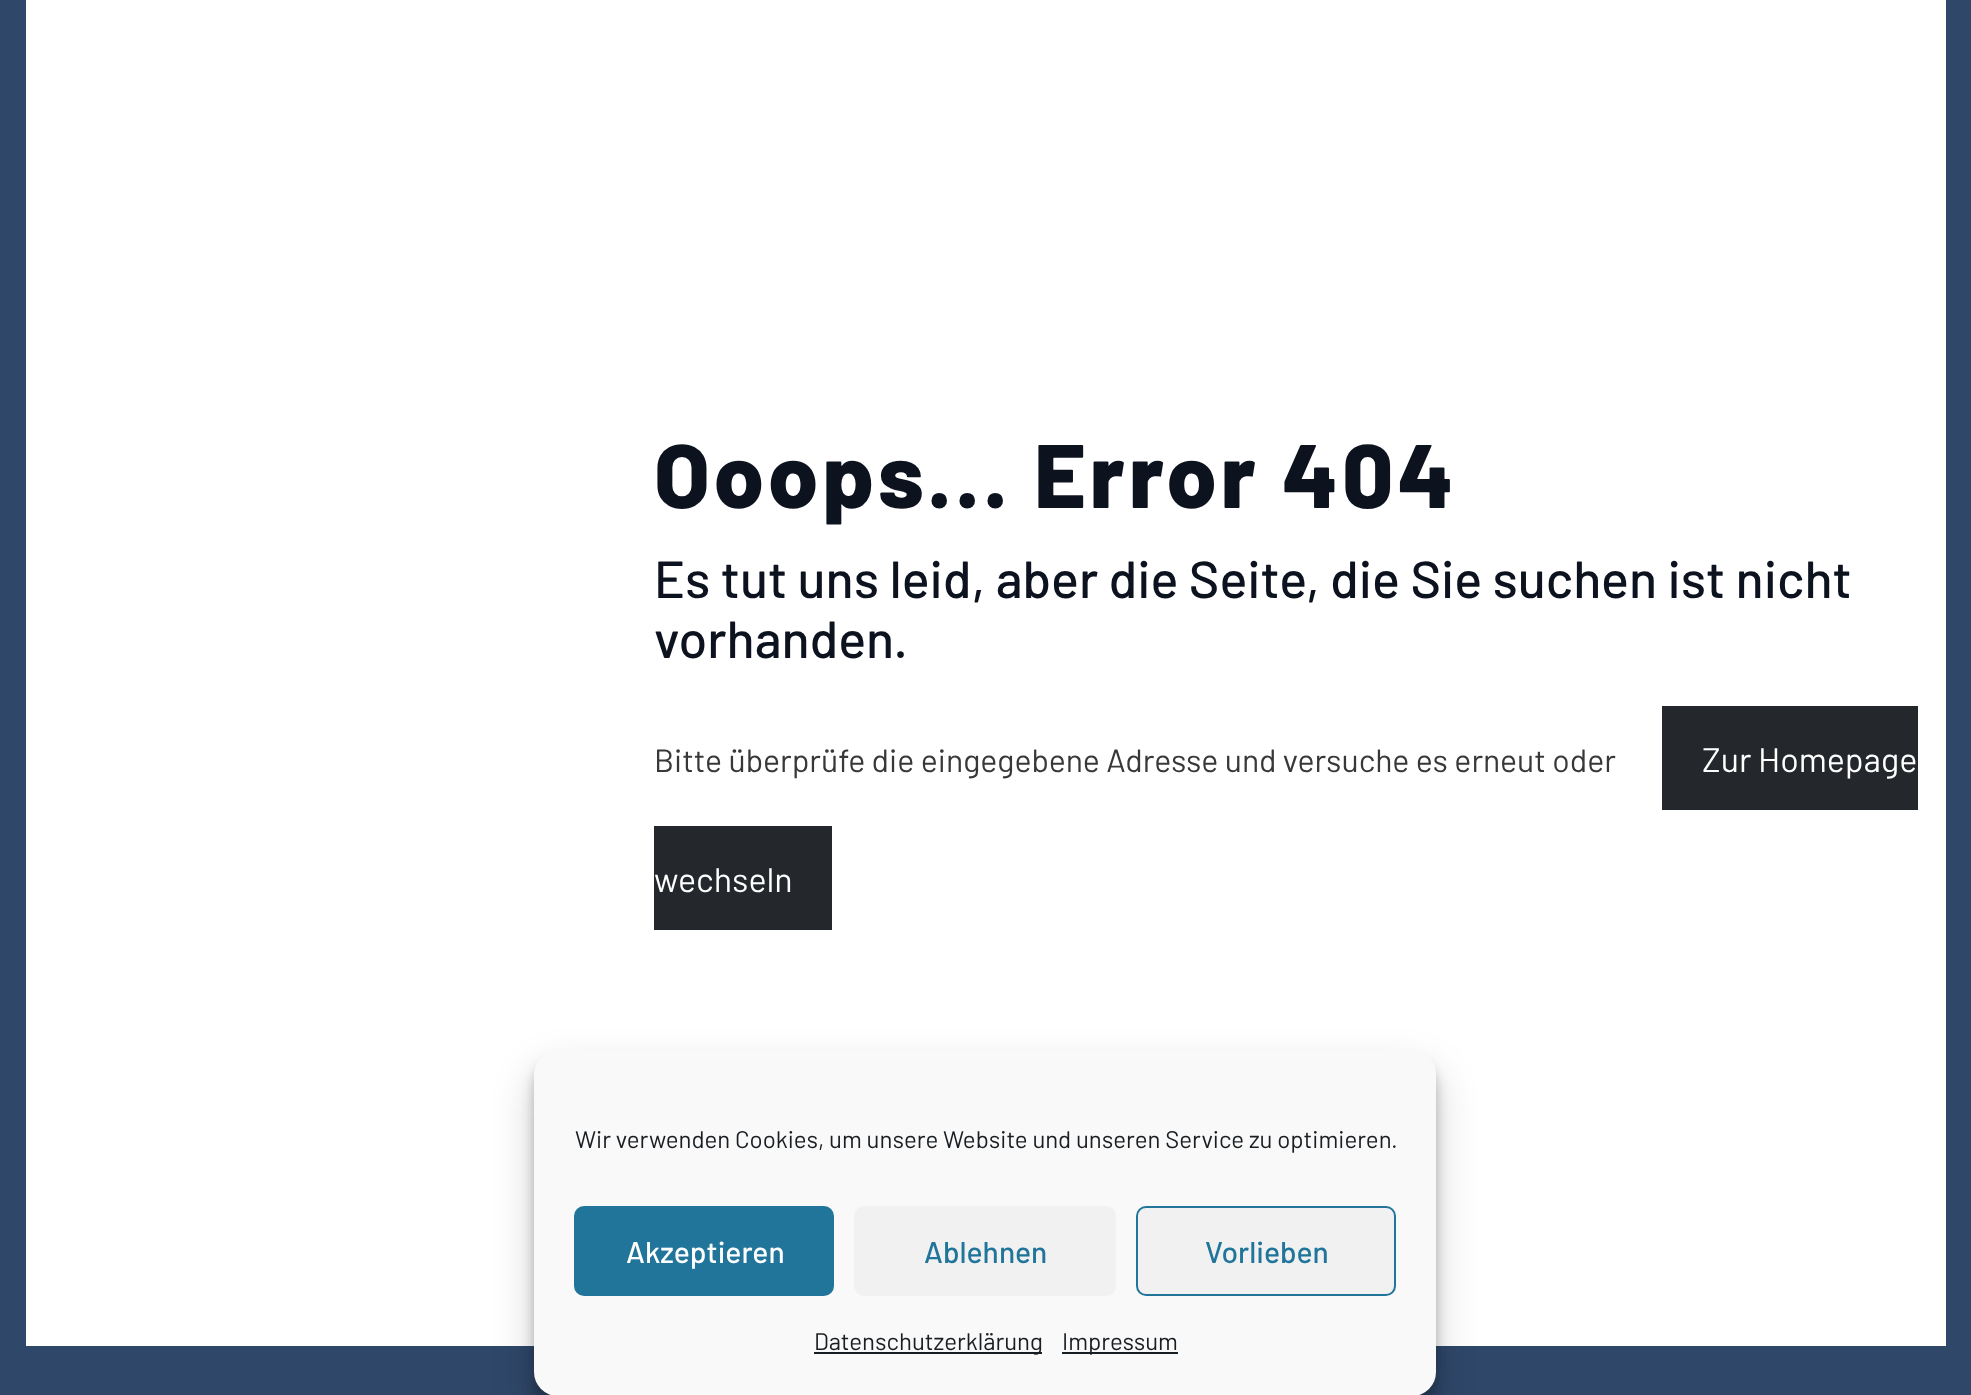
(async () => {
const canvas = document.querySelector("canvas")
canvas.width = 1971
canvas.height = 1395
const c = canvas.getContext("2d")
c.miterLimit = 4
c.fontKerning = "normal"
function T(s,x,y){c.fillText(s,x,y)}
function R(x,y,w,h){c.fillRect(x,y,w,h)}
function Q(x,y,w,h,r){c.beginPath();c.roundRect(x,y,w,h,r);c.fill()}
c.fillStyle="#2f4769"
R(0,0,1971,1395)
c.fillStyle="#fff"
R(26,0,1920,1346)
c.letterSpacing="4px"
c.font="800 90px Barlow"
c.fillStyle="#0d121f"
T("Ooops... Error 404",654,508)
c.letterSpacing="0px"
c.font="500 52px Barlow"
T("Es tut uns leid, aber die Seite, die Sie suchen ist nicht",654,598)
T("vorhanden.",654,658)
c.font="32px Barlow"
c.fillStyle="#383838"
T("Bitte überprüfe die eingegebene Adresse und versuche es erneut oder",654,772)
c.fillStyle="#24272c"
R(1662,706,256,104)
c.font="34px Barlow"
c.fillStyle="#fff"
T("Zur Homepage",1702,772)
c.fillStyle="#24272c"
R(654,826,178,104)
c.fillStyle="#fff"
T("wechseln",654,892)
c.fillStyle="#0000003b"
c.filter="blur(6px)"
c.beginPath()
c.roundRect(534,1062,902,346,24)
c.fill()
c.filter="none"
c.fillStyle="#00000030"
c.filter="blur(20px)"
c.beginPath()
c.roundRect(534,1070,902,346,24)
c.fill()
c.filter="none"
c.fillStyle="#f9f9f9"
Q(534,1050,902,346,24)
c.font="24px Barlow"
c.fillStyle="#191e23"
T("Wir verwenden Cookies, um unsere Website und unseren Service zu optimieren.",575,1148)
c.fillStyle="#21759b"
c.beginPath()
c.roundRect(575,1207,258,88,9)
c.fill()
c.strokeStyle="#21759b"
c.lineWidth=2
c.stroke()
c.font="500 30px Barlow"
c.fillStyle="#fff"
T("Akzeptieren",626,1263)
c.fillStyle="#f1f1f1"
Q(854,1206,262,90,10)
c.fillStyle="#21759b"
T("Ablehnen",924,1263)
c.fillStyle="#f1f1f1"
c.beginPath()
c.roundRect(1137,1207,258,88,9)
c.fill()
c.stroke()
c.fillStyle="#21759b"
T("Vorlieben",1205,1263)
c.fillStyle="#191e23"
R(814,1352,228,2)
c.font="24px Barlow"
T("Datenschutzerklärung",814,1350)
R(1062,1352,116,2)
T("Impressum",1062,1350)
})()
